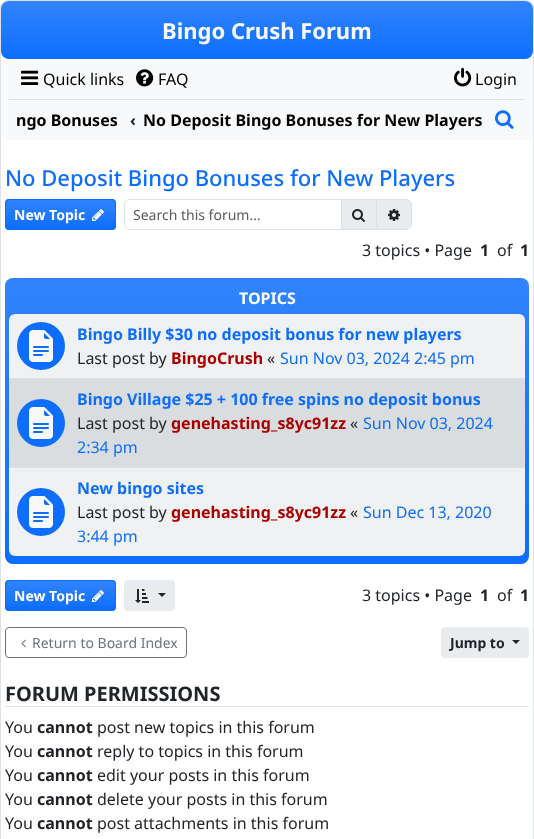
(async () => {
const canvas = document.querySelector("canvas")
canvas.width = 534
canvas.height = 839
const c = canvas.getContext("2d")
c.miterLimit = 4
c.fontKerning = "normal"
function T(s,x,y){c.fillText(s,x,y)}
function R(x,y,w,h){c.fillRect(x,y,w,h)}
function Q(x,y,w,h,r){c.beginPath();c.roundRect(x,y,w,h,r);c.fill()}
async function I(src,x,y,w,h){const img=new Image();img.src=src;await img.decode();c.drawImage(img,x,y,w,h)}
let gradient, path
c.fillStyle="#fff"
R(0,0,534,839)
c.beginPath()
c.roundRect(.5,.5,533,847,7.5)
c.strokeStyle="#dee2e6"
c.stroke()
c.fillStyle="#0d6efd"
Q(1,1,532,58,8)
gradient = c.createLinearGradient(267,1,267,59)
gradient.addColorStop(0,"#ffffff26")
gradient.addColorStop(1,"#ffffff00")
c.fillStyle = gradient
Q(1,1,532,58,8)
c.font="bold 22px Noto Sans"
c.fillStyle="#f8f9fa"
T("Bingo Crush Forum",162,39)
c.beginPath()
c.roundRect(1,59,532,40,[6,6,0,0])
c.fill()
await I("1.png",21,70,18,15)
c.font="16px Noto Sans"
c.fillStyle="#000"
T("Quick links",43,85)
await I("2.png",136,69,18,18)
T("FAQ",158,85)
await I("3.png",454,67,18,20)
T("Login",475,85)
c.fillStyle="#f8f9fa"
c.beginPath()
c.roundRect(1,99,532,41,[0,0,6,6])
c.fill()
c.fillStyle="#dee2e6"
R(9,99,516,1)
c.font="bold 16px Noto Sans"
c.fillStyle="#000"
T("ngo Bonuses",16,126)
c.fillStyle="#212529"
T("‹",130,126)
c.fillStyle="#000"
T("No Deposit Bingo Bonuses for New Players",143,126)
await I("4.png",495,110,19,19)
c.font="500 22px Noto Sans"
c.fillStyle="#0d6efd"
T("No Deposit Bingo Bonuses for New Players",5,186)
Q(5,199,111,31,4)
gradient = c.createLinearGradient(61,200,61,229)
gradient.addColorStop(0,"#ffffff26")
gradient.addColorStop(1,"#ffffff00")
c.fillStyle = gradient
R(5,200,111,25)
c.beginPath()
c.roundRect(5.5,199.5,110,30,3.5)
c.strokeStyle="#0d6efd"
c.stroke()
c.font="bold 14px Noto Sans"
c.fillStyle="#fff"
T("New Topic",14,220)
await I("5.png",92,209,12,12)
c.fillStyle="#dee2e6"
path = new Path2D("M130 199h211v31h-211c-3 0-6-3-6-6v-19c0-3 3-6 6-6zm0 1h211v29h-211c-3 0-5-2-5-5v-19c0-3 2-5 5-5z")
c.fill(path,"evenodd")
c.font="14px Noto Sans"
c.fillStyle="#595c5f"
T("Search this forum…",133,220)
c.fillStyle="#e9ecef"
R(342,200,34,29)
c.fillStyle="#dee2e6"
R(341,199,35,1)
R(341,229,35,1)
R(341,199,1,31)
await I("6.png",352,209,13,13)
c.fillStyle="#e9ecef"
c.beginPath()
c.roundRect(376.5,199.5,35,30,[0,5.5,5.5,0])
c.fill()
c.strokeStyle="#dee2e6"
c.stroke()
await I("7.png",388,209,12,12)
c.font="16px Noto Sans"
c.fillStyle="#212529"
T("3 topics • Page",362,256)
c.font="bold 16px Noto Sans"
T("1",480,256)
c.font="16px Noto Sans"
T("of",497,256)
c.font="bold 16px Noto Sans"
T("1",520,256)
c.fillStyle="#0d6efd"
Q(5,278,524,286,8)
gradient = c.createLinearGradient(267,278,267,564)
gradient.addColorStop(0,"#ffffff26")
gradient.addColorStop(1,"#ffffff00")
c.fillStyle = gradient
Q(5,278,524,286,8)
c.fillStyle="#fff"
T("TOPICS",239,304)
Q(9,314,516,242,6)
c.fillStyle="#6c757d1a"
R(9,314,516,64)
c.fillStyle="#0d6efd"
c.beginPath()
c.arc(41,346,24,0,7)
c.fill()
await I("8.png",29,330,24,32)
T("Bingo Billy $30 no deposit bonus for new players",77,340)
c.font="16px Noto Sans"
c.fillStyle="#212529"
T("Last post by",77,364)
c.font="bold 16px Noto Sans"
c.fillStyle="#a00"
T("BingoCrush",171,364)
c.font="16px Noto Sans"
c.fillStyle="#212529"
T("«",267,364)
c.fillStyle="#0d6efd"
T("Sun Nov 03, 2024 2:45 pm",280,364)
c.fillStyle="#dadddf"
R(9,379,516,88)
c.fillStyle="#dee2e6"
R(9,378,516,1)
c.fillStyle="#0d6efd"
c.beginPath()
c.arc(41,423,24,0,7)
c.fill()
await I("8.png",29,407,24,32)
c.font="bold 16px Noto Sans"
T("Bingo Village $25 + 100 free spins no deposit bonus",77,405)
c.font="16px Noto Sans"
c.fillStyle="#212529"
T("Last post by",77,429)
c.font="bold 16px Noto Sans"
c.fillStyle="#a00"
T("genehasting_s8yc91zz",171,429)
c.font="16px Noto Sans"
c.fillStyle="#212529"
T("«",350,429)
c.fillStyle="#0d6efd"
T("Sun Nov 03, 2024",363,429)
T("2:34 pm",77,453)
c.fillStyle="#6c757d1a"
R(9,468,516,88)
c.fillStyle="#dee2e6"
R(9,467,516,1)
c.fillStyle="#0d6efd"
c.beginPath()
c.arc(41,512,24,0,7)
c.fill()
await I("8.png",29,496,24,32)
c.font="bold 16px Noto Sans"
T("New bingo sites",77,494)
c.font="16px Noto Sans"
c.fillStyle="#212529"
T("Last post by",77,518)
c.font="bold 16px Noto Sans"
c.fillStyle="#a00"
T("genehasting_s8yc91zz",171,518)
c.font="16px Noto Sans"
c.fillStyle="#212529"
T("«",350,518)
c.fillStyle="#0d6efd"
T("Sun Dec 13, 2020",363,518)
T("3:44 pm",77,542)
Q(5,580,111,31,4)
gradient = c.createLinearGradient(61,581,61,610)
gradient.addColorStop(0,"#ffffff26")
gradient.addColorStop(1,"#ffffff00")
c.fillStyle = gradient
R(5,581,111,25)
c.beginPath()
c.roundRect(5.5,580.5,110,30,3.5)
c.strokeStyle="#0d6efd"
c.stroke()
c.font="bold 14px Noto Sans"
c.fillStyle="#fff"
T("New Topic",14,601)
await I("5.png",92,590,12,12)
c.fillStyle="#e9ecef"
Q(124,580,51,31,4)
await I("9.png",135,589,14,14)
c.fillStyle="#212529"
path = new Path2D("M158 593h8l-4 4z")
c.fill(path)
c.font="16px Noto Sans"
T("3 topics • Page",362,601)
c.font="bold 16px Noto Sans"
T("1",480,601)
c.font="16px Noto Sans"
T("of",497,601)
c.font="bold 16px Noto Sans"
T("1",520,601)
c.beginPath()
c.roundRect(5.5,627.5,181,30,3.5)
c.strokeStyle="#6c757d"
c.stroke()
await I("10.png",21,639,5,9)
c.font="14px Noto Sans"
c.fillStyle="#6c757d"
T("Return to Board Index",32,648)
c.fillStyle="#e9ecef"
Q(441,627,88,31,4)
c.font="bold 14px Noto Sans"
c.fillStyle="#212529"
T("Jump to",450,648)
path = new Path2D("M512 640h8l-4 4z")
c.fill(path)
c.fillStyle="#dee2e6"
R(5,706,524,1)
c.font="bold 20px Noto Sans"
c.fillStyle="#212529"
T("FORUM PERMISSIONS",5,701)
c.font="16px Noto Sans"
T("You",5,733)
c.font="bold 16px Noto Sans"
T("cannot",37,733)
c.font="16px Noto Sans"
T("post new topics in this forum",97,733)
T("You",5,757)
c.font="bold 16px Noto Sans"
T("cannot",37,757)
c.font="16px Noto Sans"
T("reply to topics in this forum",97,757)
T("You",5,781)
c.font="bold 16px Noto Sans"
T("cannot",37,781)
c.font="16px Noto Sans"
T("edit your posts in this forum",97,781)
T("You",5,805)
c.font="bold 16px Noto Sans"
T("cannot",37,805)
c.font="16px Noto Sans"
T("delete your posts in this forum",97,805)
T("You",5,829)
c.font="bold 16px Noto Sans"
T("cannot",37,829)
c.font="16px Noto Sans"
T("post attachments in this forum",97,829)
})()
